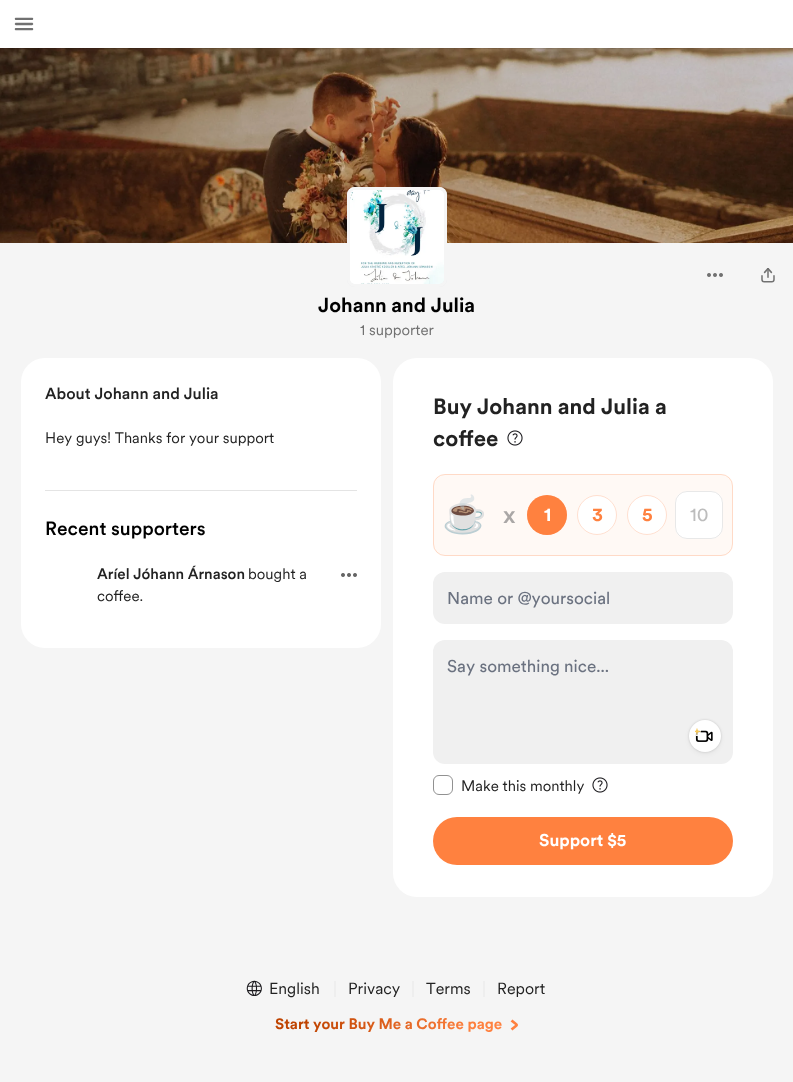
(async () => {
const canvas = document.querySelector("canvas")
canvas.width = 793
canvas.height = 1082
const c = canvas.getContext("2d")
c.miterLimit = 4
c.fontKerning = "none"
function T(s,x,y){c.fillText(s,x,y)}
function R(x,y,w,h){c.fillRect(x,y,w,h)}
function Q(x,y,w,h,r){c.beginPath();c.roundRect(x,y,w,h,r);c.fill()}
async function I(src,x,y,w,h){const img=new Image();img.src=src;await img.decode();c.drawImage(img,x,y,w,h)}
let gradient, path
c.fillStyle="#f5f5f5"
R(0,0,793,1082)
await I("2.png",0,48,793,195)
c.fillStyle="#0000000f"
c.filter="blur(0.5px)"
c.beginPath()
c.rect(0,1,793,48)
c.fill()
c.filter="none"
c.fillStyle="#fff"
R(0,0,793,48)
await I("1.png",14,17,20,14)
await I("3.png",707,273,16,4)
await I("4.png",761,268,14,15)
await I("5.png",347,187,100,100)
c.beginPath()
c.roundRect(348.5,188.5,97,97,6.5)
c.strokeStyle="#f5f5f5"
c.lineWidth=3
c.stroke()
await I("6.png",350,190,94,94)
c.font="bold 20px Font"
c.fillStyle="#000"
T("Johann and Julia",318,312)
c.font="15px 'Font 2'"
c.fillStyle="#717171"
T("1 supporter",360,335)
c.fillStyle="#fff"
Q(21,358,360,290,24)
c.fillStyle="#e4e4e4"
R(45,490,312,1)
c.font="500 16px Font"
c.fillStyle="#222"
T("About Johann and Julia",45,399)
c.font="15px 'Font 2'"
T("Hey guys! Thanks for your support",45,443)
c.font="500 19px Font"
c.fillStyle="#000"
T("Recent supporters",45,535)
c.font="500 15px Font"
c.fillStyle="#222"
T("Aríel Jóhann Árnason",97,579)
c.font="15px 'Font 2'"
T("bought a",248,579)
T("coffee.",97,601)
await I("7.png",341,573,16,4)
c.fillStyle="#fff"
Q(393,358,380,539,24)
c.font="bold 22px Font"
c.fillStyle="#222"
T("Buy Johann and Julia a",433,414)
T("coffee",433,446)
await I("8.png",507,430,16,16)
c.fillStyle="#fff9f5"
Q(433,474,300,82,12)
c.beginPath()
c.roundRect(433.5,474.5,299,81,11.5)
c.strokeStyle="#ff813f40"
c.lineWidth=1
c.stroke()
c.font="36px Noto Color Emoji"
c.fillStyle="#000"
T("☕",442,527)
c.font="500 24px Font"
c.fillStyle="#aaa7a6"
T("x",503,523)
c.fillStyle="#ff813f"
c.beginPath()
c.arc(547,515,20,0,7)
c.fill()
c.beginPath()
c.arc(547,515,19.5,0,7)
c.stroke()
c.font="bold 19px Font"
c.fillStyle="#fff"
T("1",544,521)
c.beginPath()
c.arc(597,515,20,0,7)
c.fill()
c.beginPath()
c.arc(597,515,19.5,0,7)
c.stroke()
c.fillStyle="#ff813f"
T("3",592,521)
c.fillStyle="#fff"
c.beginPath()
c.arc(647,515,20,0,7)
c.fill()
c.beginPath()
c.arc(647,515,19.5,0,7)
c.stroke()
c.fillStyle="#ff813f"
T("5",642,521)
c.fillStyle="#fff"
Q(675,491,48,48,12)
c.beginPath()
c.roundRect(675.5,491.5,47,47,11.5)
c.strokeStyle="#2222221a"
c.stroke()
c.font="19px Font"
c.fillStyle="#bdbdbd"
T("10",690,521)
c.fillStyle="#f0f0f0"
Q(433,572,300,52,12)
c.font="17px Font"
c.fillStyle="#6b7280"
T("Name or @yoursocial",447,604)
c.fillStyle="#f0f0f0"
Q(433,640,300,124,12)
c.fillStyle="#6b7280"
T("Say something nice...",447,672)
c.fillStyle="#0000000d"
c.filter="blur(2.5px)"
c.beginPath()
c.roundRect(689,722,32,32,16)
c.fill()
c.filter="none"
c.fillStyle="#00000026"
c.filter="blur(1px)"
c.beginPath()
c.roundRect(689,720,32,32,16)
c.fill()
c.filter="none"
c.fillStyle="#fff"
c.beginPath()
c.arc(705,736,16,0,7)
c.fill()
await I("10.png",695,730,18,12)
await I("9.png",695,728,6,8)
c.beginPath()
c.roundRect(433.5,775.5,19,19,5.5)
c.strokeStyle="#919191"
c.stroke()
c.font="15px 'Font 2'"
c.fillStyle="#222"
T("Make this monthly",461,791)
await I("8.png",592,777,16,16)
c.fillStyle="#ff813f"
Q(433,817,300,48,24)
c.font="bold 17px Font"
c.fillStyle="#fff"
T("Support $5",539,846)
await I("11.png",246,980,16,16)
c.font="16px 'Font 2'"
c.fillStyle="#222"
T("English",269,994)
path = new Path2D("M335 981v16")
c.strokeStyle="#e7e7e7"
c.stroke(path)
T("Privacy",348,994)
path = new Path2D("M413 981v16")
c.stroke(path)
T("Terms",426,994)
path = new Path2D("M484 981v16")
c.stroke(path)
T("Report",497,994)
c.font="bold 15px Font"
gradient = c.createLinearGradient(290,979,503,1069)
gradient.addColorStop(.14,"#bf4300")
gradient.addColorStop(.82,"#ff813f")
c.fillStyle = gradient
T("Start your Buy Me a Coffee page",275,1029)
path = new Path2D("M511.5 1020.5c7 6 7 3 0 9")
c.strokeStyle="#ff813f"
c.lineWidth=2.7
c.stroke(path)
})()
